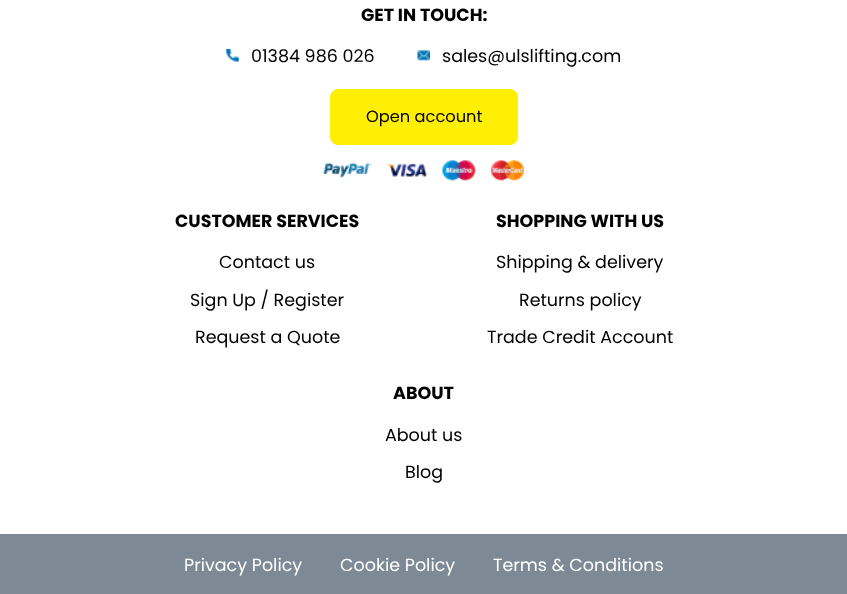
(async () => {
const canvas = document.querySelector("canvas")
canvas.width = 847
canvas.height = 594
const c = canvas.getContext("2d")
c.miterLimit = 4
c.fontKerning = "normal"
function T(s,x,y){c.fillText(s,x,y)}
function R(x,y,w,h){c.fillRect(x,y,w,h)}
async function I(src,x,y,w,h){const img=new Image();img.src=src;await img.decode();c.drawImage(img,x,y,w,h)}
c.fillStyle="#fff"
R(0,0,847,594)
c.font="bold 17.5px Poppins"
c.fillStyle="#000"
T("GET IN TOUCH:",361,21)
await I("1.png",226,49,13,13)
c.font="17.5px Poppins"
T("01384 986 026",251,62)
await I("2.png",417,50,13,11)
T("sales@ulslifting.com",442,62)
c.fillStyle="#ffef03"
c.beginPath()
c.roundRect(330.5,89.5,187,55,7.5)
c.fill()
c.strokeStyle="#ffef03"
c.stroke()
c.font="16.25px Poppins"
c.fillStyle="#000"
T("Open account",366,122)
await I("3.png",323,160,201,21)
c.font="bold 17.5px Poppins"
T("CUSTOMER SERVICES",175,227)
c.font="17.5px Poppins"
T("Contact us",219,268)
T("Sign Up / Register",190,306)
T("Request a Quote",195,343)
c.font="bold 17.5px Poppins"
T("SHOPPING WITH US",496,227)
c.font="17.5px Poppins"
T("Shipping & delivery",496,268)
T("Returns policy",519,306)
T("Trade Credit Account",487,343)
c.font="bold 17.5px Poppins"
T("ABOUT",393,399)
c.font="17.5px Poppins"
T("About us",385,441)
T("Blog",405,478)
c.fillStyle="#7d8995"
R(0,534,847,60)
c.fillStyle="#fff"
T("Privacy Policy",184,571)
T("Cookie Policy",340,571)
T("Terms & Conditions",493,571)
})()
